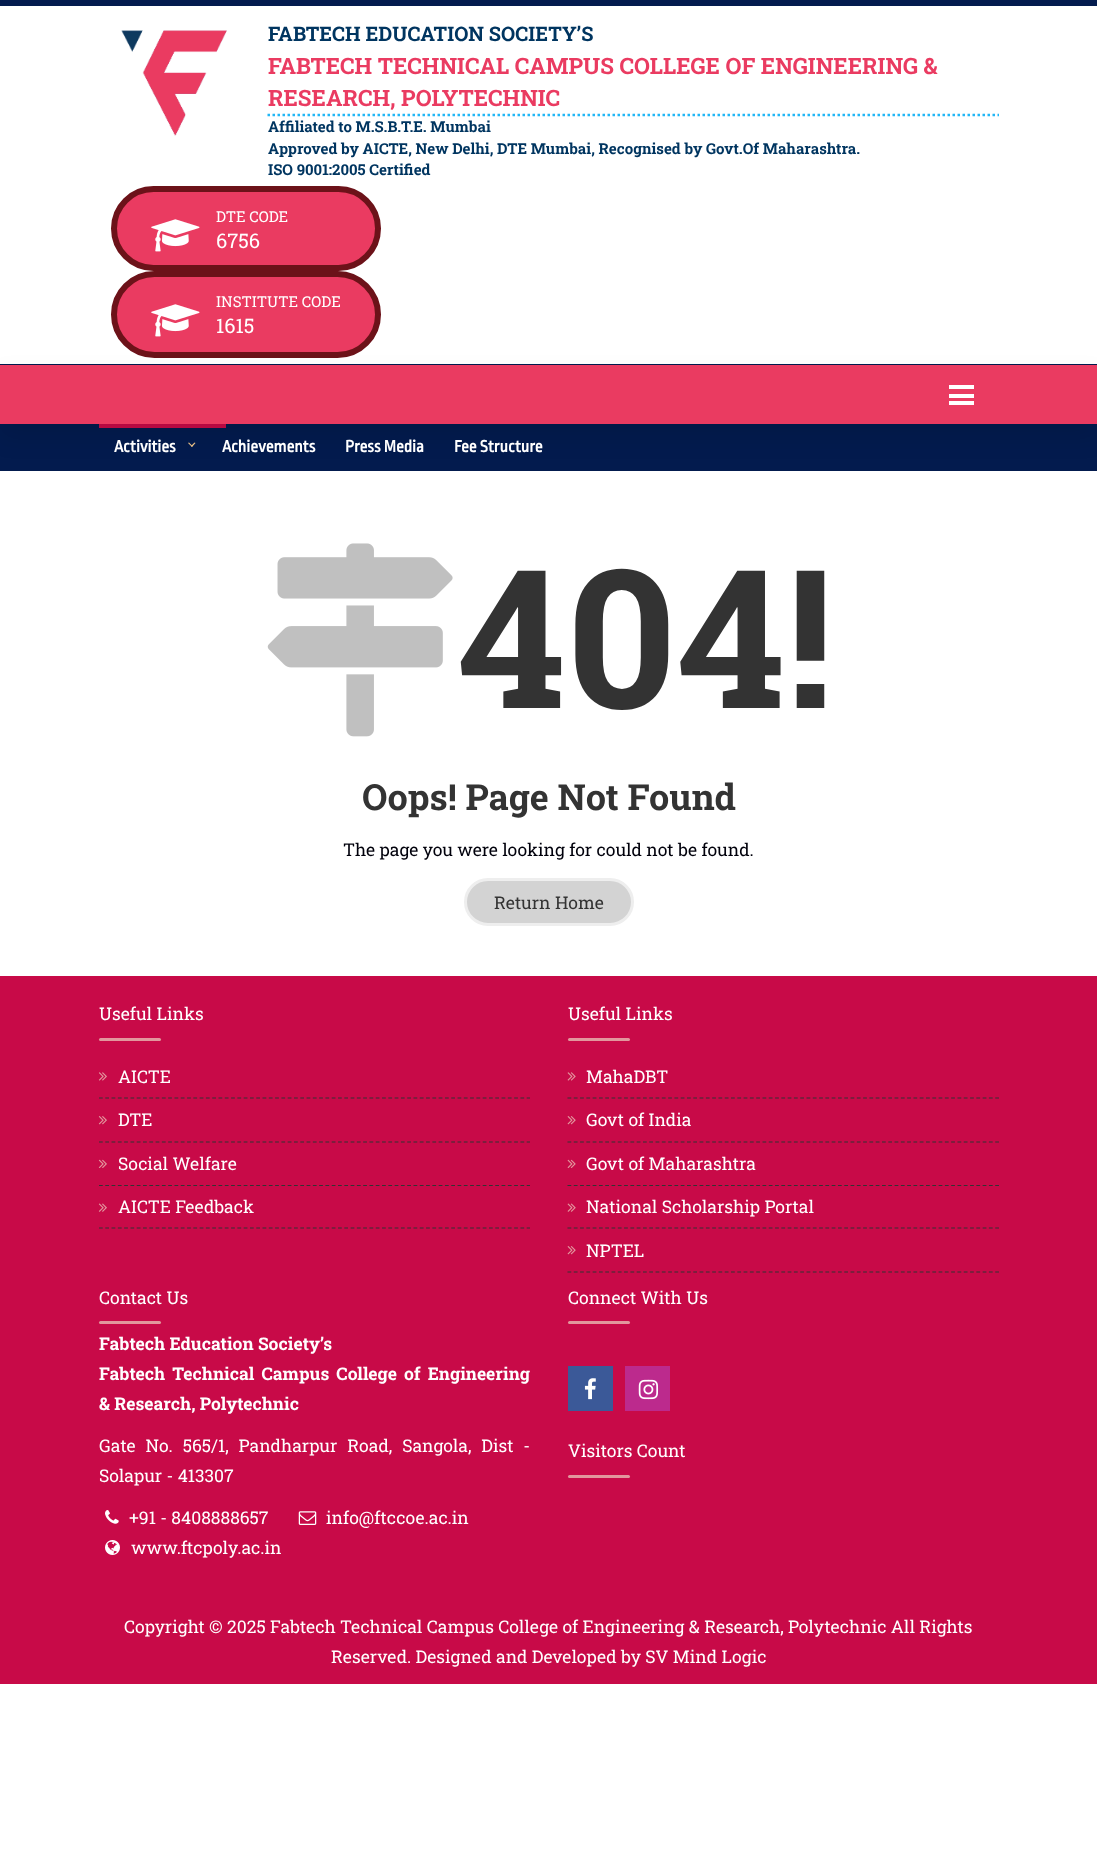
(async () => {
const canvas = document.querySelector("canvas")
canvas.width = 1097
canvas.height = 1851
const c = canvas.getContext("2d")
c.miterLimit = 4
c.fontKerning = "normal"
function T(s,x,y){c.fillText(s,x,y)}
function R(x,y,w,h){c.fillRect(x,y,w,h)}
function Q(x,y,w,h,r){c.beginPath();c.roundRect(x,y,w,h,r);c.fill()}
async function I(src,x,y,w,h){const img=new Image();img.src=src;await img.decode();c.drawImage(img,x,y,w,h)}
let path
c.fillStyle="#fff"
R(0,0,1097,1851)
c.fillStyle="#031b4e"
R(0,0,1097,6)
await I("1.png",121,30,106,106)
c.font="bold 20px Roboto Slab"
c.fillStyle="#003560"
T("FABTECH EDUCATION SOCIETY’S",268,41)
path = new Path2D("M267.5 115h731.5")
c.strokeStyle="#22b7f6"
c.lineWidth=2.5
c.setLineDash([2.5,2.5])
c.stroke(path)
c.font="bold 22.5px Roboto Slab"
c.fillStyle="#ea3b61"
T("FABTECH TECHNICAL CAMPUS COLLEGE OF ENGINEERING &",268,74)
T("RESEARCH, POLYTECHNIC",268,106)
c.font="bold 15px Roboto Slab"
c.fillStyle="#003560"
T("Affiliated to M.S.B.T.E. Mumbai",268,132)
T("Approved by AICTE, New Delhi, DTE Mumbai, Recognised by Govt.Of Maharashtra.",268,154)
T("ISO 9001:2005 Certified",268,175)
c.fillStyle="#ea3b61"
c.beginPath()
c.roundRect(114,189,264,79,39.5)
c.fill()
c.strokeStyle="#6c1219"
c.lineWidth=6
c.setLineDash([])
c.stroke()
await I("2.png",151,219,49,33)
c.font="15px Roboto Slab"
c.fillStyle="#fff"
T("DTE CODE",216,222)
c.font="20px Roboto Slab"
T("6756",216,248)
c.fillStyle="#ea3b61"
c.beginPath()
c.roundRect(114,274,264,81,40.5)
c.fill()
c.stroke()
await I("2.png",151,304,49,33)
c.font="15px Roboto Slab"
c.fillStyle="#fff"
T("INSTITUTE CODE",216,307)
c.font="20px Roboto Slab"
T("1615",216,333)
c.fillStyle="#031b4e"
R(0,364,1097,1)
R(0,424,1097,47)
c.fillStyle="#c80a48"
R(99,424,127,4)
c.fillStyle="#f2c78a"
path = new Path2D("M194.5 442.5l1 .5l-3.5 4l-1-1z")
c.fill(path)
path = new Path2D("M189 442.5l3.5 3.5l-.5 1l-4-4z")
c.fill(path)
c.fillStyle="#0000001a"
c.filter="blur(12.5px)"
c.beginPath()
c.rect(0,378,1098,58)
c.fill()
c.filter="none"
c.fillStyle="#ea3b61"
R(0,365,1097,59)
c.fillStyle="#fff"
R(949,385,25,4)
R(949,394,25,4)
R(949,401,25,4)
c.font="bold 17.5px Ropa Sans"
T("Activities",114,452)
T("Achievements",222,452)
T("Press Media",345,452)
T("Fee Structure",454,452)
await I("3.png",267,543,186,194)
c.font="bold 193px Roboto Slab"
c.fillStyle="#333"
T("404!",457,708)
c.font="bold 36px Roboto Slab"
T("Oops! Page Not Found",362,810)
c.font="17.5px Roboto Slab"
c.fillStyle="#00000b"
T("The page you were looking for could not be found.",343,856)
c.fillStyle="#d3d3d3"
c.beginPath()
c.roundRect(465.5,879.5,167,45,22.5)
c.fill()
c.strokeStyle="#eee"
c.lineWidth=3
c.stroke()
c.fillStyle="#333"
T("Return Home",494,909)
c.fillStyle="#c80a48"
R(0,976,1097,708)
c.fillStyle="#fff"
T("Useful Links",99,1020)
c.fillStyle="#e2979d"
Q(99,1038,62,3,1.5)
path = new Path2D("M99 1098h431")
c.strokeStyle="#333"
c.lineWidth=1.2
c.setLineDash([3.75,2.54])
c.stroke(path)
await I("4.png",98,1072,9,9)
c.fillStyle="#fff"
T("AICTE",118,1083)
path = new Path2D("M99 1142h431")
c.stroke(path)
await I("5.png",98,1116,9,9)
T("DTE",118,1126)
path = new Path2D("M99 1185.5h431")
c.stroke(path)
await I("6.png",98,1159,9,9)
T("Social Welfare",118,1170)
path = new Path2D("M99 1228h431")
c.stroke(path)
await I("7.png",98,1203,9,9)
T("AICTE Feedback",118,1213)
T("Useful Links",568,1020)
c.fillStyle="#e2979d"
Q(568,1038,62,3,1.5)
path = new Path2D("M567.5 1098h431.5")
c.stroke(path)
await I("8.png",567,1072,9,9)
c.fillStyle="#fff"
T("MahaDBT",586,1083)
path = new Path2D("M567.5 1142h431.5")
c.stroke(path)
await I("9.png",567,1116,9,9)
T("Govt of India",586,1126)
path = new Path2D("M567.5 1185.5h431.5")
c.stroke(path)
await I("10.png",567,1159,9,9)
T("Govt of Maharashtra",586,1170)
path = new Path2D("M567.5 1228h431.5")
c.stroke(path)
await I("11.png",567,1203,9,9)
T("National Scholarship Portal",586,1213)
path = new Path2D("M567.5 1272h431.5")
c.stroke(path)
await I("9.png",567,1246,9,9)
T("NPTEL",586,1257)
T("Contact Us",99,1304)
c.fillStyle="#e2979d"
Q(99,1321,62,3,1.5)
c.font="bold 17.5px Roboto Slab"
c.fillStyle="#fff"
T("Fabtech Education Society’s",99,1350)
c.wordSpacing="2.75px"
T("Fabtech Technical Campus College of Engineering",99,1380)
c.wordSpacing="0px"
T("& Research, Polytechnic",99,1410)
c.wordSpacing="5.5px"
c.font="17.5px Roboto Slab"
T("Gate No. 565/1, Pandharpur Road, Sangola, Dist -",99,1452)
c.wordSpacing="0px"
T("Solapur - 413307",99,1482)
await I("12.png",105,1510,14,14)
T("+91 - 8408888657",129,1524)
await I("13.png",298,1511,19,14)
T("info@ftccoe.ac.in",326,1524)
await I("14.png",105,1540,15,15)
T("www.ftcpoly.ac.in",131,1554)
T("Connect With Us",568,1304)
c.fillStyle="#e2979d"
Q(568,1321,62,3,1.5)
c.fillStyle="#3b5998"
R(568,1366,45,45)
await I("15.png",584,1378,12,22)
c.fillStyle="#bc2a8d"
R(625,1366,45,45)
await I("16.png",638,1379,21,21)
c.fillStyle="#fff"
T("Visitors Count",568,1457)
c.fillStyle="#e2979d"
Q(568,1475,62,3,1.5)
c.fillStyle="#fff"
T("Copyright © 2025 Fabtech Technical Campus College of Engineering & Research, Polytechnic All Rights",124,1633)
T("Reserved. Designed and Developed by SV Mind Logic",331,1663)
})()
